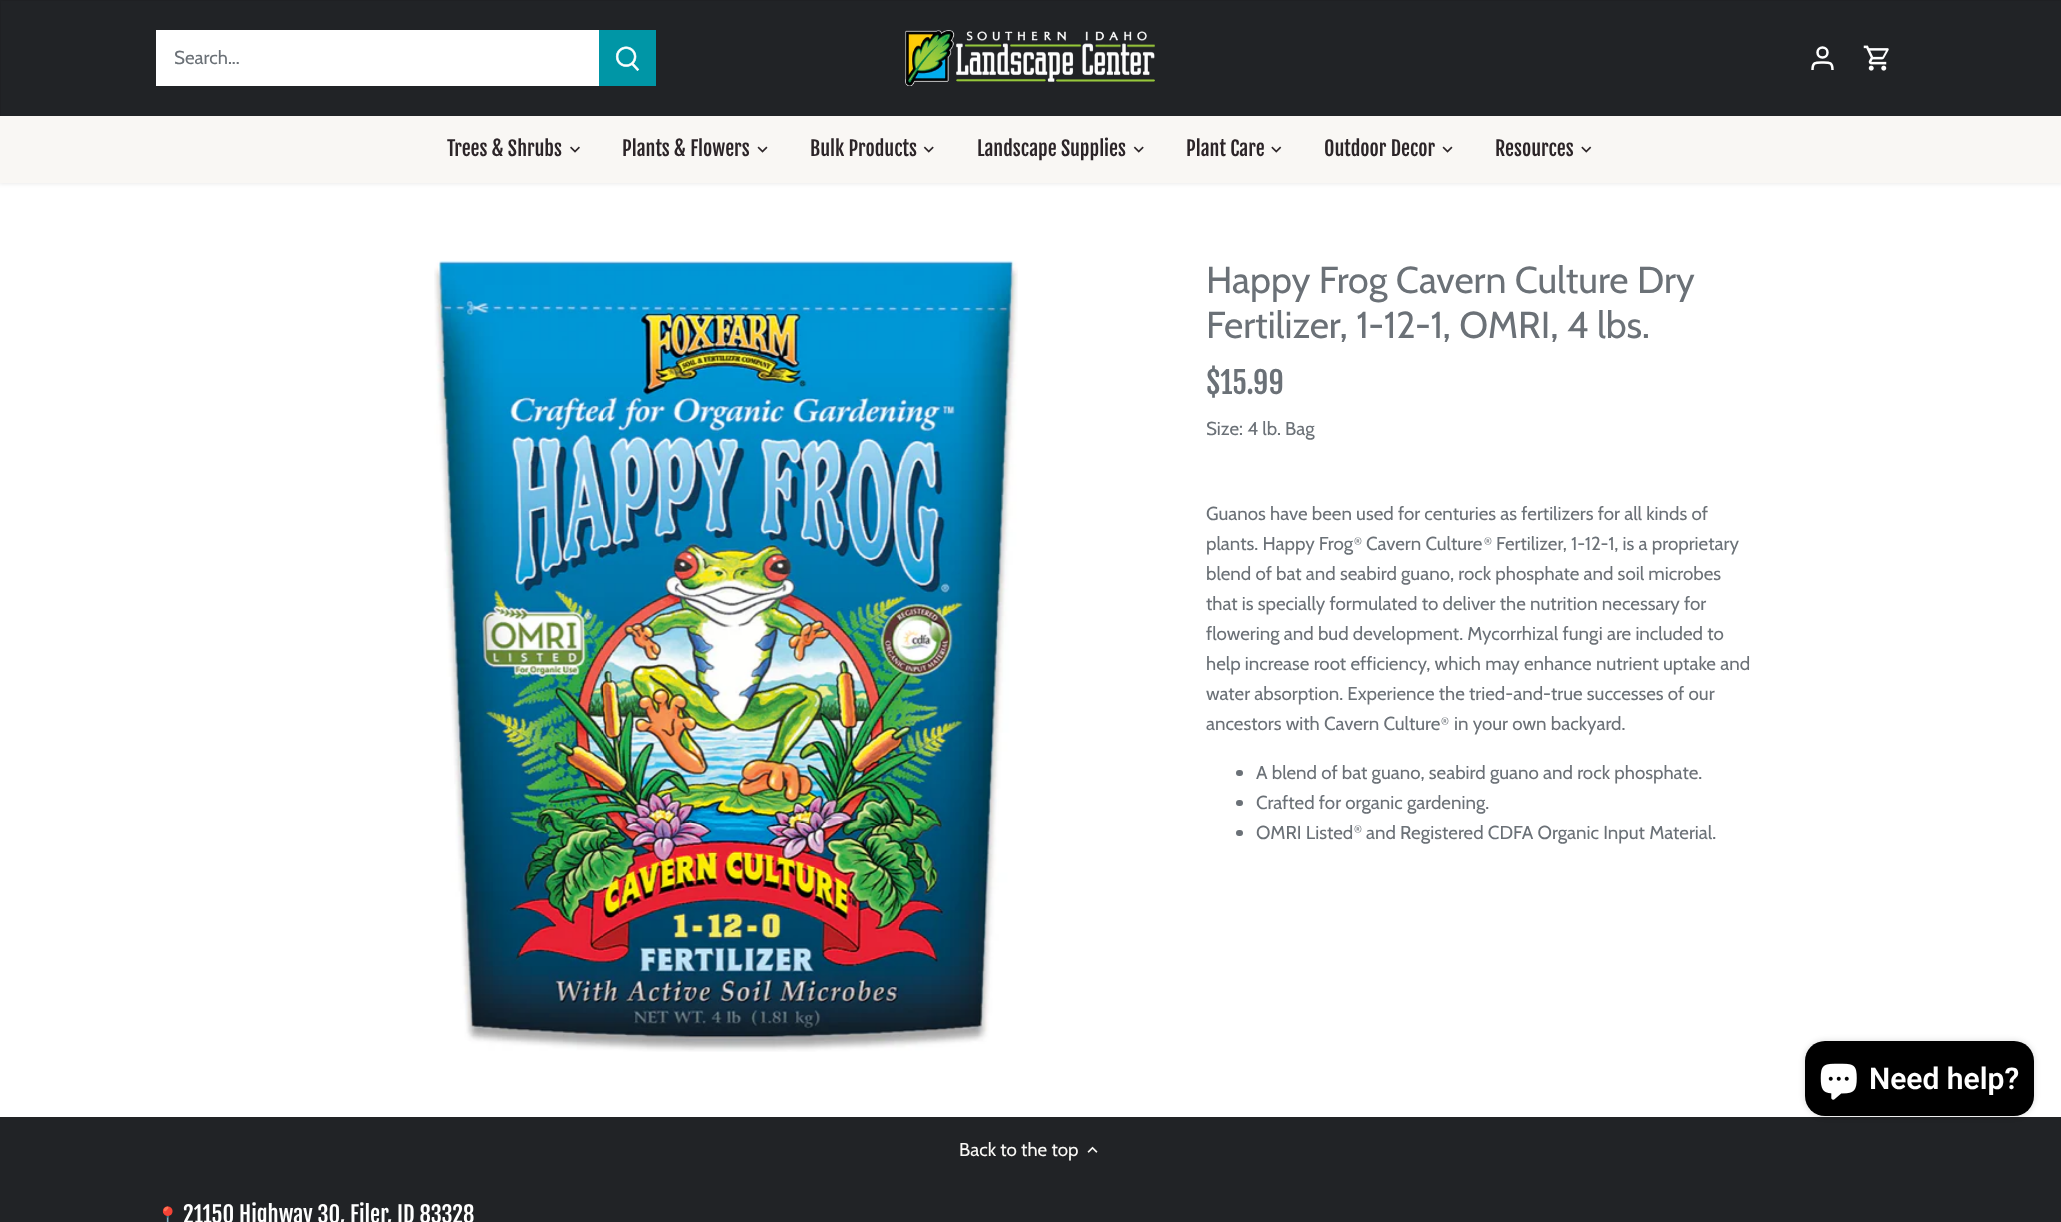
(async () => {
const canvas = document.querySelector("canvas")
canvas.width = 2061
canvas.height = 1222
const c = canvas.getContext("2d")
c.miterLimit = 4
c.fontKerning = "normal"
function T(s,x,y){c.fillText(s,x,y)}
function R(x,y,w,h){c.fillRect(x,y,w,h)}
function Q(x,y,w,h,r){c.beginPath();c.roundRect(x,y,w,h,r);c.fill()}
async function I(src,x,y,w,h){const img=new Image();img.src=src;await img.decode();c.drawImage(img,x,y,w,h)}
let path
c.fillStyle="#212326"
R(0,0,2061,1222)
c.fillStyle="#fff"
R(0,183,2061,934)
c.fillStyle="#00000014"
c.filter="blur(2px)"
c.beginPath()
c.rect(-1,-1,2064,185)
c.fill()
c.filter="none"
c.fillStyle="#f9f7f4"
R(0,116,2061,67)
c.fillStyle="#212326"
R(1,1,2060,115)
c.fillStyle="#fff"
R(156,30,443,56)
c.font="18.75px Cabin"
c.fillStyle="#6b7177"
T("Search...",174,64)
c.fillStyle="#0096a6"
R(599,30,57,56)
await I("1.png",615,46,25,25)
await I("2.png",905,30,250,56)
c.beginPath()
c.arc(1822.5,52.5,5,0,7)
c.strokeStyle="#fff"
c.lineWidth=2.5
c.stroke()
path = new Path2D("M1832.5 70c0-8-3-7.5-10-7.5c-7 0-10-.5-10 7.5")
c.stroke(path)
await I("3.png",1863,45,26,26)
c.font="20px Fjalla One"
c.fillStyle="#2c2528"
T("Trees & Shrubs",447,156)
await I("4.png",570,146,10,7)
T("Plants & Flowers",622,156)
await I("5.png",757,146,11,7)
T("Bulk Products",810,156)
await I("6.png",923,146,11,7)
T("Landscape Supplies",977,156)
await I("6.png",1133,146,11,7)
T("Plant Care",1186,156)
await I("7.png",1271,146,11,7)
T("Outdoor Decor",1324,156)
await I("5.png",1442,146,11,7)
T("Resources",1495,156)
await I("7.png",1581,146,11,7)
await I("8.png",434,260,584,792)
c.font="37.5px Cabin"
c.fillStyle="#6b7177"
T("Happy Frog Cavern Culture Dry",1206,293)
T("Fertilizer, 1-12-1, OMRI, 4 lbs.",1206,338)
c.font="30px Fjalla One"
T("$15.99",1206,394)
c.font="18.75px Cabin"
T("Size: 4 lb. Bag",1206,435)
T("Guanos have been used for centuries as fertilizers for all kinds of",1206,520)
T("plants. Happy Frog",1206,550)
c.font="11px Cabin"
T("®",1354,545)
c.font="18.75px Cabin"
T("Cavern Culture",1366,550)
c.font="11px Cabin"
T("®",1484,545)
c.font="18.75px Cabin"
T("Fertilizer, 1-12-1, is a proprietary",1496,550)
T("blend of bat and seabird guano, rock phosphate and soil microbes",1206,580)
T("that is specially formulated to deliver the nutrition necessary for",1206,610)
T("flowering and bud development. Mycorrhizal fungi are included to",1206,640)
T("help increase root efficiency, which may enhance nutrient uptake and",1206,670)
T("water absorption. Experience the tried-and-true successes of our",1206,700)
T("ancestors with Cavern Culture",1206,730)
c.font="11px Cabin"
T("®",1441,725)
c.font="18.75px Cabin"
T("in your own backyard.",1454,730)
Q(1236,770,7,6,3)
T("A blend of bat guano, seabird guano and rock phosphate.",1256,779)
Q(1236,800,7,6,3)
T("Crafted for organic gardening.",1256,809)
Q(1236,830,7,6,3)
T("OMRI Listed",1256,839)
c.font="11px Cabin"
T("®",1354,833)
c.font="18.75px Cabin"
T("and Registered CDFA Organic Input Material.",1366,839)
c.fillStyle="#faf9f6"
T("Back to the top",959,1156)
await I("9.png",1087,1146,11,7)
c.font="18.75px Noto Color Emoji"
T("📍",156,1223)
c.font="22.5px Fjalla One"
c.fillStyle="#fff"
T("21150 Highway 30, Filer, ID 83328",183,1223)
c.fillStyle="#00000026"
c.filter="blur(3px)"
c.beginPath()
c.roundRect(1805,1041,229,75,20)
c.fill()
c.filter="none"
c.fillStyle="#000"
Q(1805,1041,229,75,20)
await I("10.png",1820,1063,37,37)
c.font="600 30px Roboto"
c.fillStyle="#fff"
T("Need help?",1869,1089)
})()
